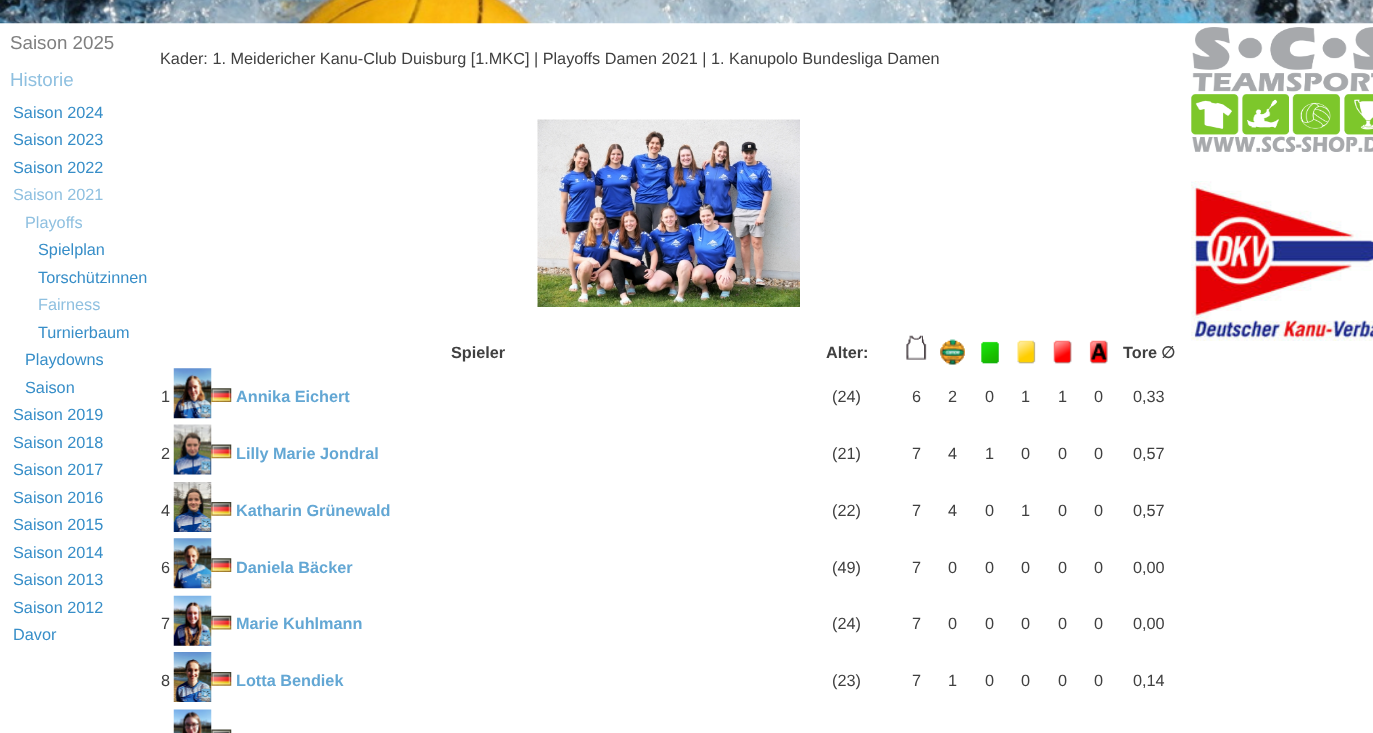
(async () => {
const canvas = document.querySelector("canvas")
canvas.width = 1373
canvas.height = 733
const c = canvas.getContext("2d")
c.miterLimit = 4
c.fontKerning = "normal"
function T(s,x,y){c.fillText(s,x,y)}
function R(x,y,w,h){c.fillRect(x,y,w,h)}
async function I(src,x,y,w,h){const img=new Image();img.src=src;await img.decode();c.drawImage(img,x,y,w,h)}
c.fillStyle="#fff"
R(0,0,1373,733)
await I("1.png",0,0,1373,24)
c.font="18.75px Liberation Sans"
c.fillStyle="#808080"
T("Saison 2025",10,49)
c.fillStyle="#8fc0e0"
T("Historie",10,86)
c.font="16.25px Liberation Sans"
c.fillStyle="#378ec8"
T("Saison 2024",13,118)
T("Saison 2023",13,145)
T("Saison 2022",13,173)
c.fillStyle="#8fc0e0"
T("Saison 2021",13,200)
T("Playoffs",25,228)
c.fillStyle="#378ec8"
T("Spielplan",38,255)
T("Torschützinnen",38,283)
c.fillStyle="#8fc0e0"
T("Fairness",38,310)
c.fillStyle="#378ec8"
T("Turnierbaum",38,338)
T("Playdowns",25,365)
T("Saison",25,393)
T("Saison 2019",13,420)
T("Saison 2018",13,448)
T("Saison 2017",13,475)
T("Saison 2016",13,503)
T("Saison 2015",13,530)
T("Saison 2014",13,558)
T("Saison 2013",13,585)
T("Saison 2012",13,613)
T("Davor",13,640)
c.fillStyle="#404040"
T("Kader: 1. Meidericher Kanu-Club Duisburg [1.MKC] | Playoffs Damen 2021 | 1. Kanupolo Bundesliga Damen",160,64)
await I("2.png",537,119,263,188)
c.font="bold 16.25px Liberation Sans"
T("Spieler",451,358)
T("Alter:",826,358)
await I("3.png",906,335,21,25)
await I("4.png",940,339,25,26)
await I("5.png",981,341,18,23)
await I("6.png",1017,340,19,24)
await I("7.png",1053,340,19,24)
await I("8.png",1089,340,19,24)
T("Tore",1123,358)
c.font="bold 16.25px DejaVu Sans"
T("∅",1161,358)
c.font="16.25px Liberation Sans"
T("1",161,402)
await I("9.png",173,368,39,51)
await I("10.png",211,388,21,14)
c.font="bold 16.25px Liberation Sans"
c.fillStyle="#63a7d4"
T("Annika Eichert",236,402)
c.font="16.25px Liberation Sans"
c.fillStyle="#404040"
T("(24)",832,402)
T("6",912,402)
T("2",948,402)
T("0",985,402)
T("1",1021,402)
T("1",1058,402)
T("0",1094,402)
T("0,33",1133,402)
T("2",161,459)
await I("11.png",173,424,39,51)
await I("12.png",211,444,21,15)
c.font="bold 16.25px Liberation Sans"
c.fillStyle="#63a7d4"
T("Lilly Marie Jondral",236,459)
c.font="16.25px Liberation Sans"
c.fillStyle="#404040"
T("(21)",832,459)
T("7",912,459)
T("4",948,459)
T("1",985,459)
T("0",1021,459)
T("0",1058,459)
T("0",1094,459)
T("0,57",1133,459)
T("4",161,516)
await I("13.png",173,482,39,50)
await I("14.png",211,502,21,14)
c.font="bold 16.25px Liberation Sans"
c.fillStyle="#63a7d4"
T("Katharin Grünewald",236,516)
c.font="16.25px Liberation Sans"
c.fillStyle="#404040"
T("(22)",832,516)
T("7",912,516)
T("4",948,516)
T("0",985,516)
T("1",1021,516)
T("0",1058,516)
T("0",1094,516)
T("0,57",1133,516)
T("6",161,573)
await I("15.png",173,538,39,51)
await I("16.png",211,558,21,14)
c.font="bold 16.25px Liberation Sans"
c.fillStyle="#63a7d4"
T("Daniela Bäcker",236,573)
c.font="16.25px Liberation Sans"
c.fillStyle="#404040"
T("(49)",832,573)
T("7",912,573)
T("0",948,573)
T("0",985,573)
T("0",1021,573)
T("0",1058,573)
T("0",1094,573)
T("0,00",1133,573)
T("7",161,629)
await I("17.png",173,595,39,51)
await I("18.png",211,615,21,15)
c.font="bold 16.25px Liberation Sans"
c.fillStyle="#63a7d4"
T("Marie Kuhlmann",236,629)
c.font="16.25px Liberation Sans"
c.fillStyle="#404040"
T("(24)",832,629)
T("7",912,629)
T("0",948,629)
T("0",985,629)
T("0",1021,629)
T("0",1058,629)
T("0",1094,629)
T("0,00",1133,629)
T("8",161,686)
await I("19.png",173,652,39,50)
await I("20.png",211,672,21,14)
c.font="bold 16.25px Liberation Sans"
c.fillStyle="#63a7d4"
T("Lotta Bendiek",236,686)
c.font="16.25px Liberation Sans"
c.fillStyle="#404040"
T("(23)",832,686)
T("7",912,686)
T("1",948,686)
T("0",985,686)
T("0",1021,686)
T("0",1058,686)
T("0",1094,686)
T("0,14",1133,686)
await I("21.png",173,709,39,24)
await I("22.png",211,729,21,4)
await I("23.png",1191,27,182,125)
await I("24.png",1191,181,182,160)
})()
